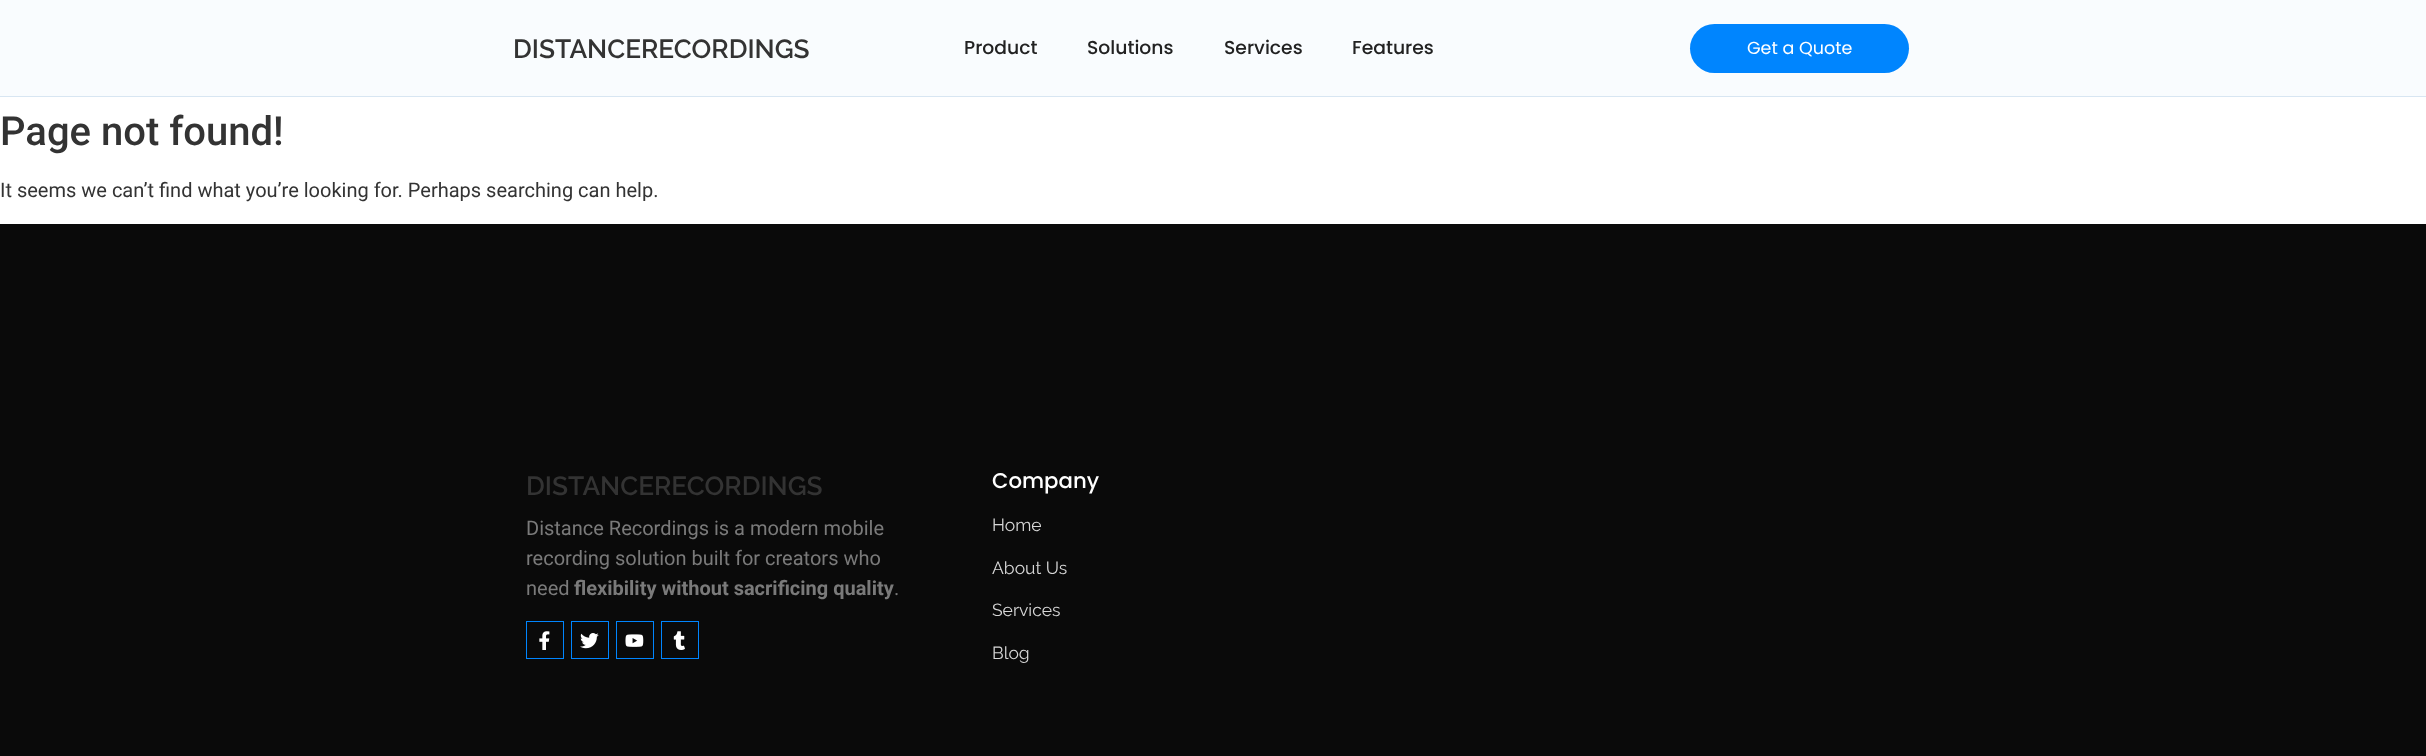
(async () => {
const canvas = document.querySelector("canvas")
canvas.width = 2426
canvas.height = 756
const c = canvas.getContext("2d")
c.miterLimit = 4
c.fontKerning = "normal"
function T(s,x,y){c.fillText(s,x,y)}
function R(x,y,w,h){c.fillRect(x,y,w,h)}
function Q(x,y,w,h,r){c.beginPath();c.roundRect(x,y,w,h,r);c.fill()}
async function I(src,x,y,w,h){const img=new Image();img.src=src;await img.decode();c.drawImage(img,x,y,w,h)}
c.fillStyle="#fff"
R(0,0,2426,756)
c.fillStyle="#f9fcfe"
R(0,0,2426,96)
c.fillStyle="#d8e6f2"
R(0,96,2426,1)
c.font="600 26.25px Raleway"
c.fillStyle="#333"
T("DISTANCERECORDINGS",513,58)
c.font="500 18.75px Poppins"
c.fillStyle="#222"
T("Product",964,54)
T("Solutions",1087,54)
T("Services",1224,54)
T("Features",1352,54)
c.fillStyle="#0085fe"
Q(1690,24,219,49,24.5)
c.font="17.5px Poppins"
c.fillStyle="#fff"
T("Get a Quote",1747,54)
c.font="500 40px Roboto"
c.fillStyle="#333"
T("Page not found!",0,145)
c.font="20px Roboto"
T("It seems we can’t find what you’re looking for. Perhaps searching can help.",0,197)
c.fillStyle="#0a0a0a"
R(0,224,2426,532)
c.font="600 26.25px Raleway"
c.fillStyle="#333"
T("DISTANCERECORDINGS",526,495)
c.font="20px Roboto"
c.fillStyle="#7a7a7a"
T("Distance Recordings is a modern mobile",526,535)
T("recording solution built for creators who",526,565)
T("need",526,595)
c.font="bold 20px Roboto"
T("flexibility without sacrificing quality",574,595)
c.font="20px Roboto"
T(".",894,595)
c.strokeStyle="#0085fe"
c.strokeRect(526.5,621.5,37,37)
await I("1.png",539,631,11,19)
c.strokeRect(571.5,621.5,37,37)
await I("2.png",580,633,19,16)
c.strokeRect(616.5,621.5,37,37)
await I("3.png",625,634,19,13)
c.strokeRect(661.5,621.5,37,37)
await I("4.png",673,631,12,19)
c.font="500 21.25px Poppins"
c.fillStyle="#fff"
T("Company",992,488)
c.font="17.5px Raleway"
c.fillStyle="#d7d7d7"
T("Home",992,531)
T("About Us",992,574)
T("Services",992,616)
T("Blog",992,659)
})()
